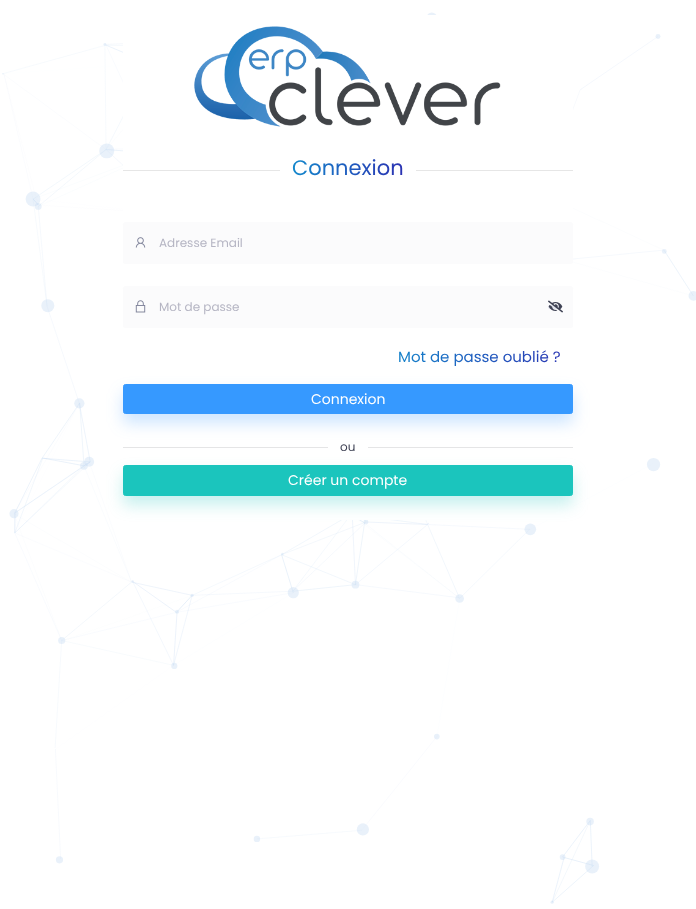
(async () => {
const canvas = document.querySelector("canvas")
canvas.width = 696
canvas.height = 909
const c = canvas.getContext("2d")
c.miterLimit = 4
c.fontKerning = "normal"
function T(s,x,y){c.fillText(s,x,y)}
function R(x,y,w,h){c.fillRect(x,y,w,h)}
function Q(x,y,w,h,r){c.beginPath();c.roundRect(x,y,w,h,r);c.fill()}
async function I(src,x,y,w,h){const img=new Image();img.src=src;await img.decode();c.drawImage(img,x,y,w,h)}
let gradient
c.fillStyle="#fff"
R(0,0,696,909)
await I("1.png",2,12,694,892)
R(123,15,450,505)
await I("2.png",194,26,307,101)
c.fillStyle="#e6e6e6"
R(123,170,157,1)
c.font="21px Poppins"
gradient = c.createLinearGradient(292,168,404,168)
gradient.addColorStop(0,"#1488cc")
gradient.addColorStop(1,"#2b32b2")
c.fillStyle = gradient
T("Connexion",292,175)
c.fillStyle="#e6e6e6"
R(416,170,157,1)
c.fillStyle="#fbfbfc"
Q(123,222,450,42,2.5)
await I("3.png",135,237,11,11)
c.font="12px Poppins"
c.fillStyle="#b5b5c3"
T("Adresse Email",159,247)
c.fillStyle="#fbfbfc"
Q(123,286,450,42,2.5)
await I("4.png",135,300,11,13)
c.fillStyle="#b5b5c3"
T("Mot de passe",159,311)
c.fillStyle="#e4e6ef"
c.beginPath()
c.roundRect(548.5,305.5,13,3,1.5)
c.fill()
c.strokeStyle="#e4e6ef"
c.stroke()
await I("5.png",548,300,15,13)
c.font="15px Poppins"
gradient = c.createLinearGradient(386,358,573,358)
gradient.addColorStop(0,"#1488cc")
gradient.addColorStop(1,"#2b32b2")
c.fillStyle = gradient
T("Mot de passe oublié ?",398,362)
c.fillStyle="#3699ff40"
c.filter="blur(8px)"
c.beginPath()
c.roundRect(123,393,450,30,2.5)
c.fill()
c.filter="none"
c.fillStyle="#3699ff"
c.beginPath()
c.roundRect(123.5,384.5,449,29,2)
c.fill()
c.strokeStyle="#3699ff"
c.stroke()
c.font="14px Poppins"
c.fillStyle="#fff"
T("Connexion",311,404)
c.fillStyle="#e5e5e6"
R(123,447,205,1)
c.fillStyle="#1bc5bd40"
c.filter="blur(8px)"
c.beginPath()
c.roundRect(123,474,450,31,2.5)
c.fill()
c.filter="none"
c.font="12px Poppins"
c.fillStyle="#3f4254"
T("ou",340,451)
c.fillStyle="#e5e5e6"
R(368,447,205,1)
c.fillStyle="#1bc5bd"
c.beginPath()
c.roundRect(123.5,465.5,449,30,2)
c.fill()
c.strokeStyle="#1bc5bd"
c.stroke()
c.font="14px Poppins"
c.fillStyle="#fff"
T("Créer un compte",288,485)
})()
